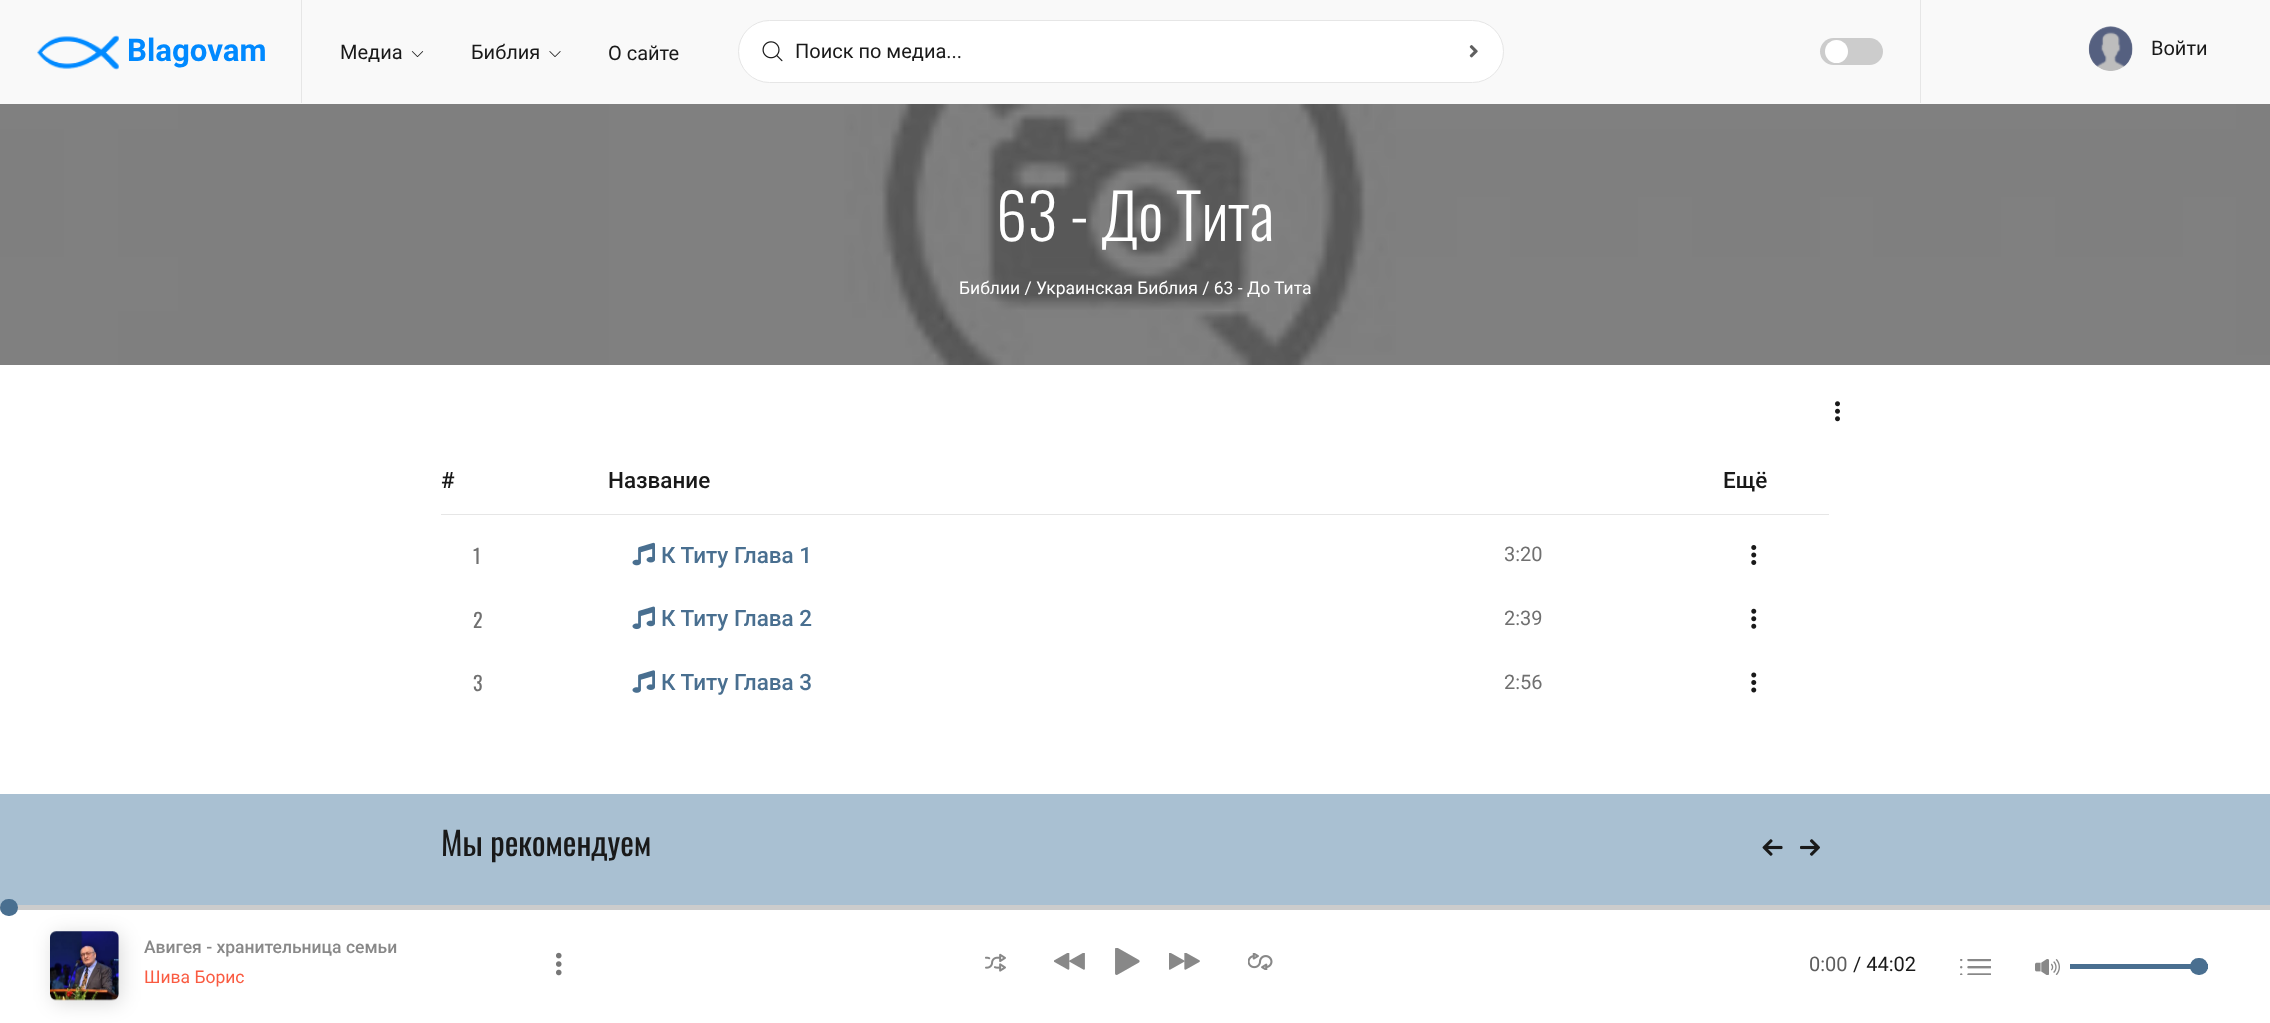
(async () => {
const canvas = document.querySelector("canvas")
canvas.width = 2270
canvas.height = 1023
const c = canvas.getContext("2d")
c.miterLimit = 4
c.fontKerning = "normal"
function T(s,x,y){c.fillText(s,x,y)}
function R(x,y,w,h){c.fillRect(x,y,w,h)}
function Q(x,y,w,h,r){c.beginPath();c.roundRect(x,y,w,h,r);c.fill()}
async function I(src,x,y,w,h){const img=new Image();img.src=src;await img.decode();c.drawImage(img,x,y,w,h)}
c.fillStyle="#fff"
R(0,0,2270,1023)
c.fillStyle="#f9f9f9"
R(0,0,2270,104)
await I("1.png",37,35,82,35)
c.font="bold 31.25px Roboto"
c.fillStyle="#0089ff"
T("Blagovam",127,61)
c.fillStyle="#e6e6e6"
R(301,0,1,103)
c.font="20px Roboto"
c.fillStyle="#191919"
T("Медиа",340,59)
await I("2.png",411,51,13,6)
T("Библия",471,59)
await I("3.png",549,51,12,6)
T("О сайте",608,60)
c.fillStyle="#fff"
c.beginPath()
c.roundRect(738.5,20.5,765,62,31)
c.fill()
c.strokeStyle="#e6e6e6"
c.stroke()
await I("4.png",762,41,21,21)
c.fillStyle="#191919"
T("Поиск по медиа...",795,58)
await I("5.png",1469,45,9,13)
c.fillStyle="#ccc"
Q(1820,38,63,27,13.5)
c.fillStyle="#fff"
c.beginPath()
c.arc(1836.5,51.5,11.5,0,7)
c.fill()
c.fillStyle="#e6e6e6"
R(1920,0,1,103)
await I("6.png",2088,26,45,45)
c.fillStyle="#191919"
T("Войти",2151,55)
await I("7.png",0,104,2270,261)
c.font="300 62.5px Oswald"
c.fillStyle="#fff"
T("63 - До Тита",996,241)
c.font="17.5px Roboto"
T("Библии / Украинская Библия / 63 - До Тита",959,294)
await I("8.png",1835,401,5,21)
c.fillStyle="#e6e6e6"
R(441,514,1388,1)
c.font="500 22.5px Roboto"
c.fillStyle="#191919"
T("#",441,488)
T("Название",608,488)
T("Ещё",1723,488)
c.font="20px Oswald"
c.fillStyle="#707070"
T("1",473,564)
await I("9.png",632,542,23,24)
c.font="500 22.5px Roboto"
c.fillStyle="#496f90"
T("К Титу Глава 1",661,563)
c.font="20px Roboto"
c.fillStyle="#707070"
T("3:20",1504,561)
await I("10.png",1751,545,6,20)
c.font="20px Oswald"
T("2",473,628)
await I("11.png",632,606,23,24)
c.font="500 22.5px Roboto"
c.fillStyle="#496f90"
T("К Титу Глава 2",661,626)
c.font="20px Roboto"
c.fillStyle="#707070"
T("2:39",1504,625)
await I("12.png",1751,608,6,21)
c.font="20px Oswald"
T("3",473,691)
await I("13.png",632,670,23,23)
c.font="500 22.5px Roboto"
c.fillStyle="#496f90"
T("К Титу Глава 3",661,690)
c.font="20px Roboto"
c.fillStyle="#707070"
T("2:56",1504,689)
await I("14.png",1751,672,6,21)
c.fillStyle="#a9c0d2"
R(0,794,2270,111)
c.font="32.5px Oswald"
c.fillStyle="#191919"
T("Мы рекомендуем",441,856)
await I("15.png",1762,839,21,17)
await I("16.png",1800,839,20,17)
c.fillStyle="#ccc"
R(0,905,2270,5)
c.fillStyle="#496f90"
Q(0,899,18,17,8.5)
c.fillStyle="#00000026"
c.filter="blur(10px)"
c.beginPath()
c.roundRect(53,934,68,69,6)
c.fill()
c.filter="none"
await I("17.png",50,931,69,70)
c.font="500 17.5px Roboto"
c.fillStyle="#888"
T("Авигея - хранительница семьи",144,953)
c.font="17.5px Roboto"
c.fillStyle="#fa5b41"
T("Шива Борис",144,983)
await I("18.png",556,952,6,24)
await I("19.png",985,953,21,19)
await I("20.png",1054,953,31,17)
await I("21.png",1115,948,25,27)
await I("22.png",1169,953,31,17)
await I("23.png",1248,953,25,17)
c.font="20px Roboto"
c.fillStyle="#5e5e5e"
T("0:00",1809,971)
c.fillStyle="#191919"
T("/ 44:02",1853,971)
await I("24.png",1960,959,31,16)
await I("25.png",2035,959,25,16)
c.fillStyle="#496f90"
R(2070,964,138,5)
Q(2190,958,18,17,8.5)
})()
